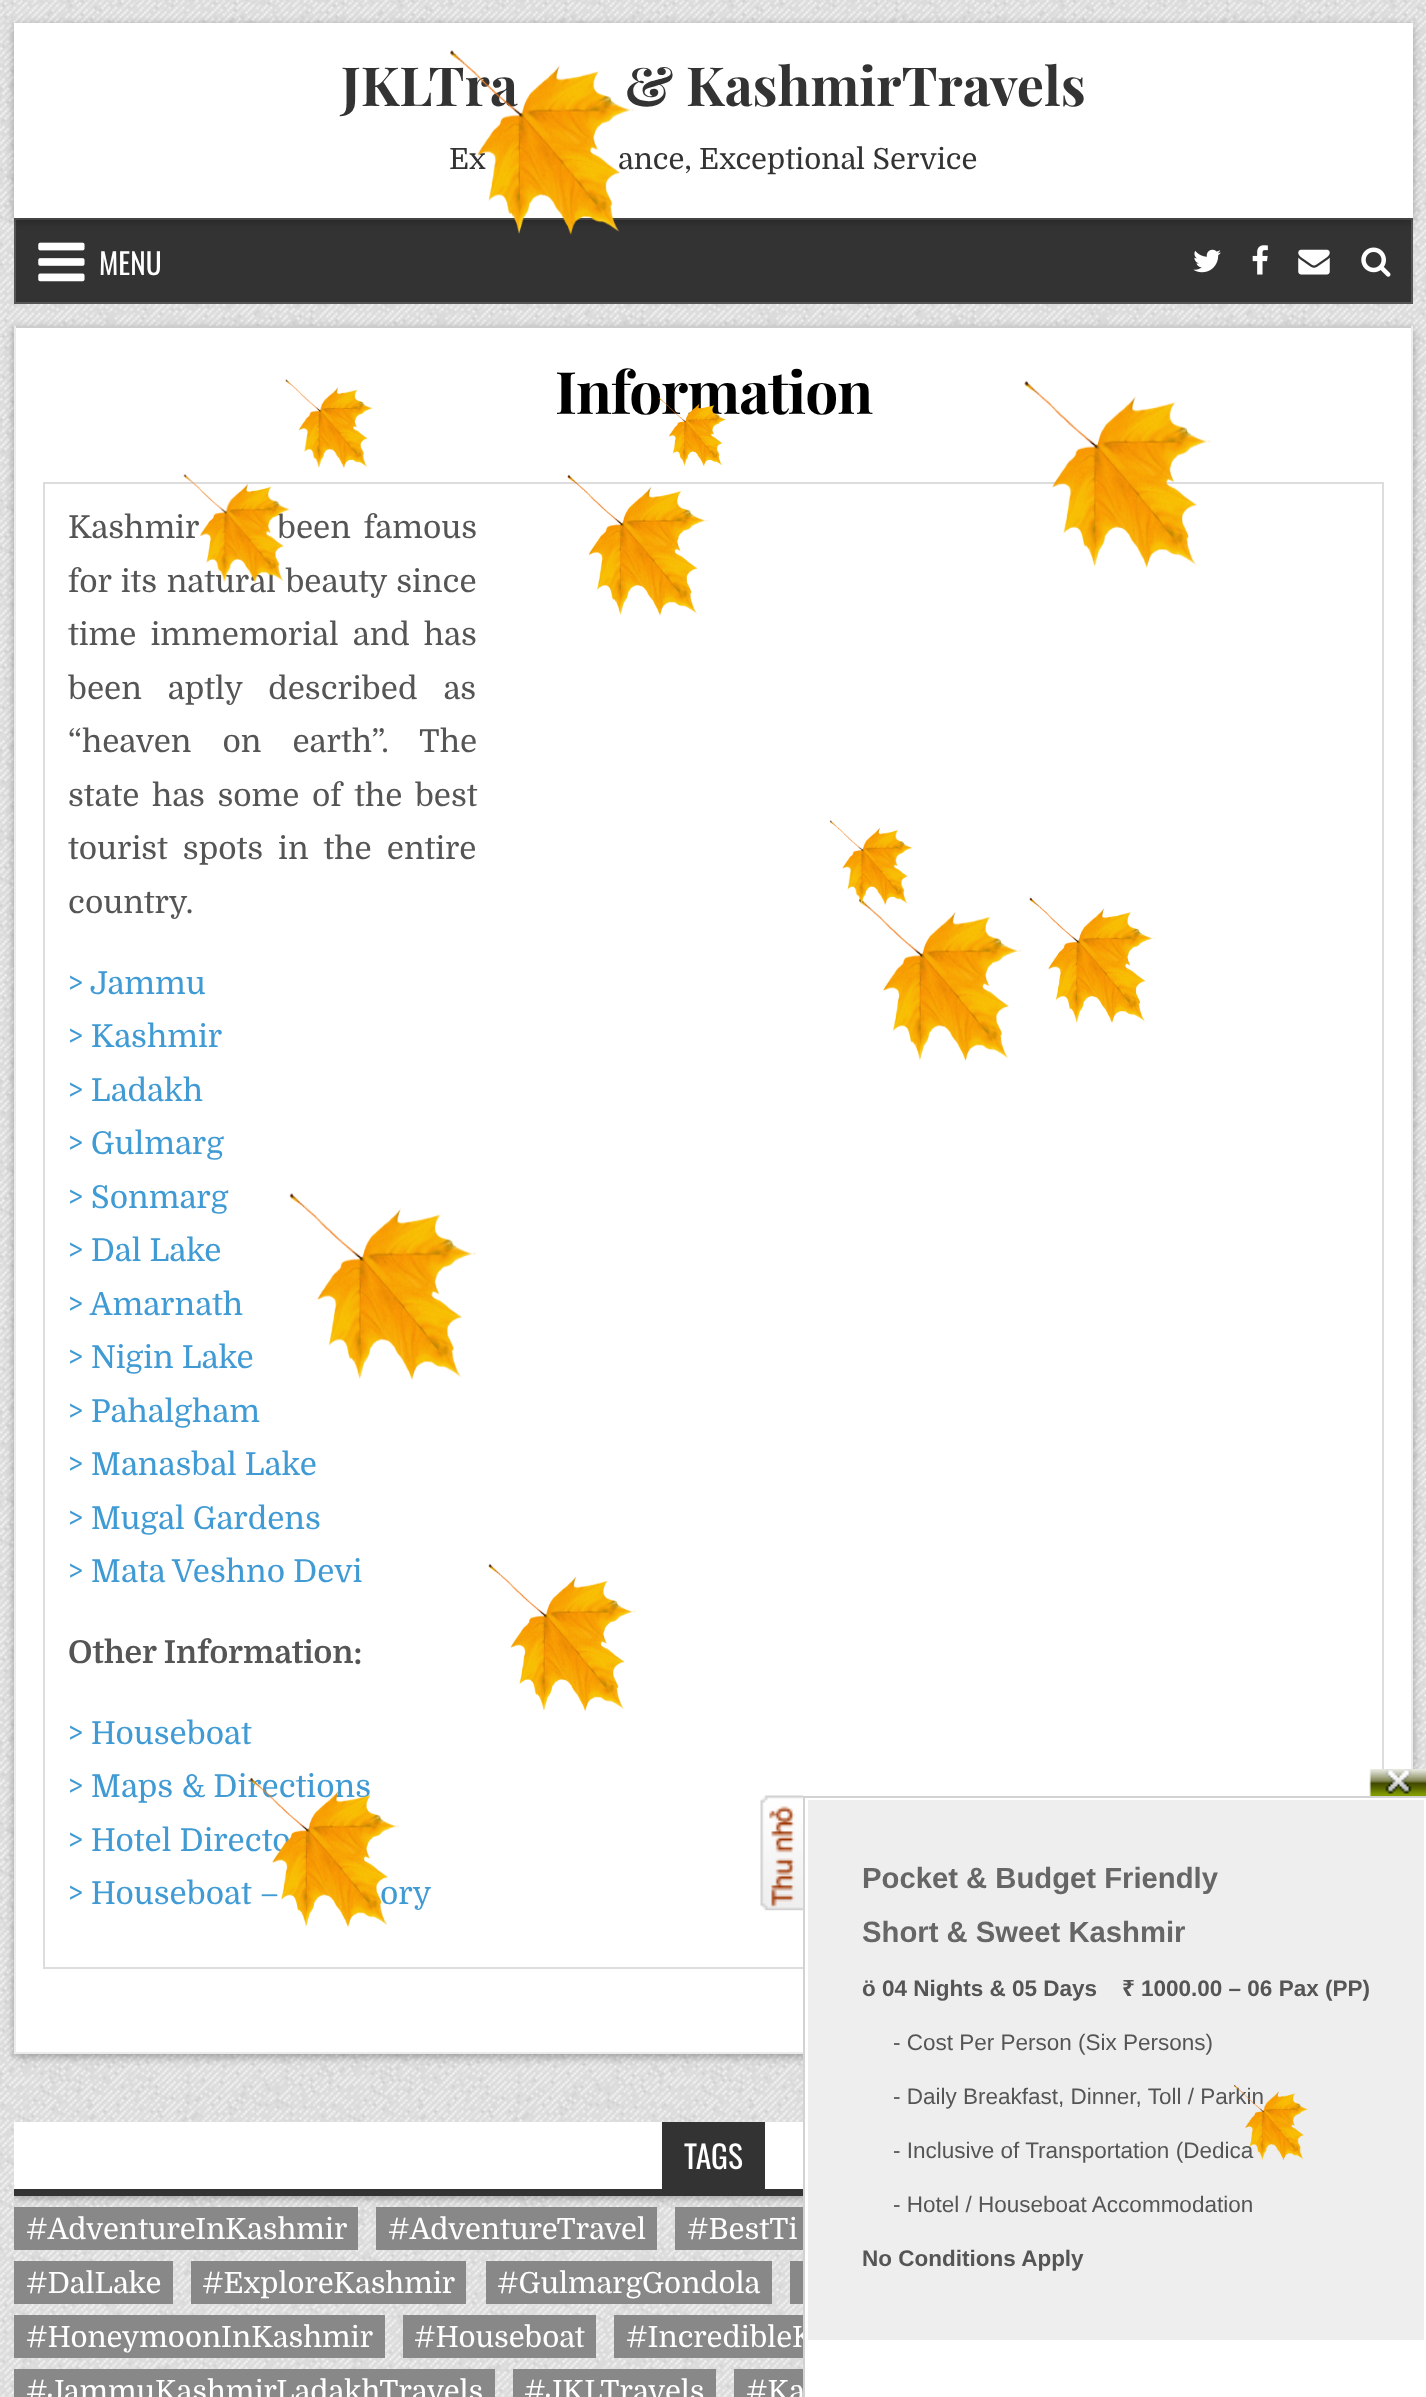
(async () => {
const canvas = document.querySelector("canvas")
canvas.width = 1426
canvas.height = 2397
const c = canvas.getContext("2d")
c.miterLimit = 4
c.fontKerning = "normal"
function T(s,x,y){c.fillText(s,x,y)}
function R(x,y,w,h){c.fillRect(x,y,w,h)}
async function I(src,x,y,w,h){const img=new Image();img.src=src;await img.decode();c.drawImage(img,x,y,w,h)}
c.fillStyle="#fff"
R(0,0,1426,2397)
await I("1.png",0,0,1426,2397)
c.fillStyle="#333"
c.beginPath()
c.rect(15,219,1397,84)
c.fill()
c.strokeStyle="#555"
c.lineWidth=2
c.stroke()
c.fillStyle="#0000004d"
c.filter="blur(4.5px)"
c.beginPath()
c.rect(14,25,1399,196)
c.fill()
c.filter="none"
c.fillStyle="#fff"
R(14,23,1399,195)
c.font="bold 54px Playfair Display"
c.fillStyle="#333"
T("JKLTra",341,106)
T("& KashmirTravels",625,106)
c.font="29.25px Domine"
T("Ex",449,169)
T("ance, Exceptional Service",618,169)
await I("2.png",450,50,184,185)
await I("3.png",38,242,47,40)
c.font="29.25px Oswald"
c.fillStyle="#fff"
T("MENU",99,275)
await I("4.png",1193,249,28,24)
await I("5.png",1252,245,16,30)
await I("6.png",1298,249,32,26)
await I("7.png",1361,247,30,30)
c.fillStyle="#0000004d"
c.filter="blur(4.5px)"
c.beginPath()
c.rect(14,329,1399,1728)
c.fill()
c.filter="none"
c.fillStyle="#fff"
R(16,328,1395,1724)
c.fillStyle="#ccc"
R(14,326,1399,2)
c.fillStyle="#ececec"
R(1411,326,2,1443)
R(14,2052,789,2)
R(14,326,2,1728)
c.letterSpacing="-1.1px"
c.font="bold 58.5px Playfair Display"
c.fillStyle="#000"
T("Information",555,414)
c.strokeStyle="#ddd"
c.strokeRect(44,483,1339,1485)
c.letterSpacing="0px"
c.wordSpacing="5px"
c.font="31.5px Domine"
c.fillStyle="#555"
T("Kashmir",68,538)
T("been famous",277,538)
c.wordSpacing="1.5px"
T("for its natural beauty since",68,592)
c.wordSpacing="6px"
T("time immemorial and has",68,645)
c.wordSpacing="18px"
T("been aptly described as",68,699)
c.wordSpacing="23px"
T("“heaven on earth”. The",68,752)
c.wordSpacing="4.5px"
T("state has some of the best",68,806)
c.wordSpacing="7px"
T("tourist spots in the entire",68,859)
c.wordSpacing="0px"
T("country.",68,913)
c.fillStyle="#409bd4"
T("> Jammu",68,994)
T("> Kashmir",68,1047)
T("> Ladakh",68,1101)
T("> Gulmarg",68,1154)
T("> Sonmarg",68,1208)
T("> Dal Lake",68,1261)
T("> Amarnath",68,1315)
T("> Nigin Lake",68,1368)
T("> Pahalgham",68,1422)
T("> Manasbal Lake",68,1475)
T("> Mugal Gardens",68,1529)
T("> Mata Veshno Devi",68,1582)
c.font="bold 31.5px Domine"
c.fillStyle="#555"
T("Other Information:",68,1663)
c.font="31.5px Domine"
c.fillStyle="#409bd4"
T("> Houseboat",68,1744)
T("> Maps & Directions",68,1797)
T("> Hotel Directo",68,1851)
T("> Houseboat –",68,1904)
T("ory",380,1904)
c.save()
c.beginPath()
c.rect(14,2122,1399,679)
c.clip()
c.fillStyle="#0000004d"
c.filter="blur(4.5px)"
c.beginPath()
c.rect(14,2124,1399,74)
c.fill()
c.filter="none"
c.restore()
c.fillStyle="#fff"
R(14,2122,789,67)
c.fillStyle="#333"
R(14,2189,789,7)
R(662,2122,103,67)
c.font="31.5px Oswald"
c.fillStyle="#fff"
T("TAGS",684,2169)
c.fillStyle="#888"
R(14,2207,344,43)
c.font="29.25px Domine"
c.fillStyle="#fff"
T("#AdventureInKashmir",26,2239)
c.fillStyle="#888"
R(376,2207,281,43)
c.fillStyle="#fff"
T("#AdventureTravel",388,2239)
c.fillStyle="#888"
R(675,2207,128,43)
c.fillStyle="#fff"
T("#BestTi",687,2239)
c.fillStyle="#888"
R(14,2261,159,43)
c.fillStyle="#fff"
T("#DalLake",26,2293)
c.fillStyle="#888"
R(191,2261,275,43)
c.fillStyle="#fff"
T("#ExploreKashmir",202,2293)
c.fillStyle="#888"
R(486,2261,286,43)
c.fillStyle="#fff"
T("#GulmargGondola",497,2293)
c.fillStyle="#888"
R(790,2261,13,43)
R(14,2315,371,43)
c.fillStyle="#fff"
T("#HoneymoonInKashmir",26,2347)
c.fillStyle="#888"
R(403,2315,193,43)
c.fillStyle="#fff"
T("#Houseboat",414,2347)
c.fillStyle="#888"
R(614,2315,189,43)
c.fillStyle="#fff"
T("#IncredibleK",626,2347)
c.fillStyle="#888"
R(14,2369,481,28)
c.fillStyle="#fff"
T("#JammuKashmirLadakhTravels",26,2401)
c.fillStyle="#888"
R(513,2369,203,28)
c.fillStyle="#fff"
T("#JKLTravels",524,2401)
c.fillStyle="#888"
R(734,2369,69,28)
c.fillStyle="#fff"
T("#Ka",746,2401)
await I("8.png",285,379,89,90)
await I("9.png",658,397,70,70)
await I("10.png",1024,380,187,188)
await I("11.png",183,474,109,109)
await I("12.png",567,474,141,142)
await I("14.png",859,898,162,164)
await I("13.png",829,820,85,85)
await I("15.png",1029,897,126,127)
await I("16.png",289,1193,187,187)
await I("17.png",488,1563,148,149)
await I("18.png",250,1777,149,151)
await I("19.png",1369,1769,57,27)
await I("20.png",760,1795,44,116)
c.beginPath()
c.rect(804,1797,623,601)
c.fill()
c.strokeStyle="#d2d2d2"
c.stroke()
c.fillStyle="#eee"
R(808,1800,616,540)
c.font="bold 29.25px Liberation Sans"
c.fillStyle="#666"
T("Pocket & Budget Friendly",862,1888)
T("Short & Sweet Kashmir",862,1942)
c.font="bold 22.5px Liberation Sans"
c.fillStyle="#555"
T("ö 04 Nights & 05 Days",862,1996)
c.font="bold 22.5px Noto Sans"
T("₹",1122,1996)
c.font="bold 22.5px Liberation Sans"
T("1000.00 – 06 Pax (PP)",1141,1996)
c.font="22.5px Liberation Sans"
T("- Cost Per Person (Six Persons)",893,2050)
T("- Daily Breakfast, Dinner, Toll / Parkin",893,2104)
T("- Inclusive of Transportation (Dedica",893,2158)
T("- Hotel / Houseboat Accommodation",893,2212)
c.font="bold 22.5px Liberation Sans"
T("No Conditions Apply",862,2266)
await I("21.png",1234,2085,76,76)
})()
